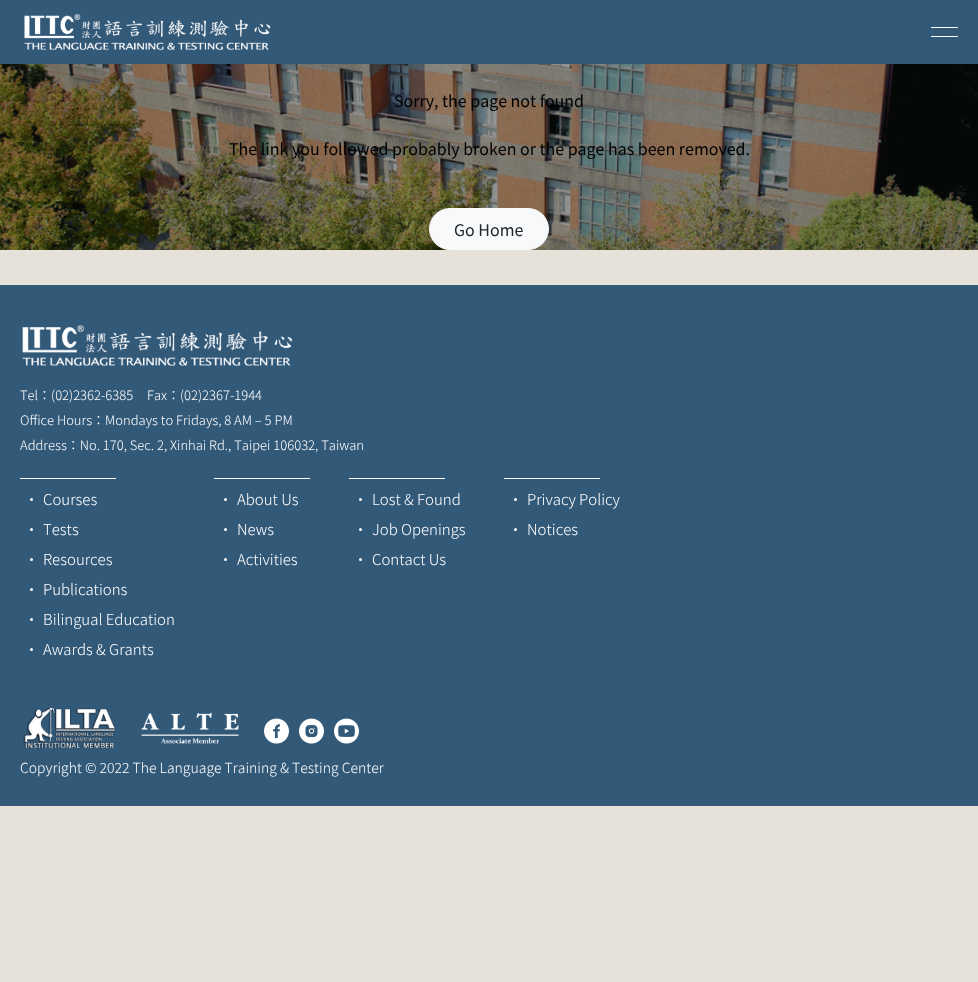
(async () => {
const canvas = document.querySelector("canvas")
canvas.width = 978
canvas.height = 982
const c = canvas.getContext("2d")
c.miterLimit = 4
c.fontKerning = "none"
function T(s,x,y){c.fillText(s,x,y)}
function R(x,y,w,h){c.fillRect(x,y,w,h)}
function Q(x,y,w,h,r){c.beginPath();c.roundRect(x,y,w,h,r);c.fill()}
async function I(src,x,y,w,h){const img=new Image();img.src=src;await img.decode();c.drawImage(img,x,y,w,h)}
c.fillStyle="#e6e1d9"
R(0,0,978,982)
c.fillStyle="#335979"
R(0,0,978,64)
await I("1.png",24,13,247,38)
c.fillStyle="#fff"
Q(931,27,27,1,.5)
Q(931,36,27,1,.5)
await I("2.png",0,64,978,186)
c.font="16px Noto Sans TC"
c.fillStyle="#000"
T("Sorry, the page not found",394,107)
T("The link you followed probably broken or the page has been removed.",229,155)
c.fillStyle="#f8f9fa"
c.beginPath()
c.roundRect(429.5,208.5,119,41,20.5)
c.fill()
c.strokeStyle="#f8f9fa"
c.stroke()
c.fillStyle="#212529"
T("Go Home",454,236)
c.fillStyle="#335979"
R(0,285,978,521)
await I("3.png",22,325,271,41)
c.font="300 13px Noto Sans TC"
c.fillStyle="#fff"
T("Tel：(02)2362-6385",20,400)
T("Fax：(02)2367-1944",147,400)
T("Office Hours：Mondays to Fridays, 8 AM – 5 PM",20,425)
T("Address：No. 170, Sec. 2, Xinhai Rd., Taipei 106032, Taiwan",20,450)
R(20,478,96,1)
c.beginPath()
c.arc(31.5,499.5,1.5,0,7)
c.fill()
c.font="300 15px Noto Sans TC"
T("Courses",43,505)
c.beginPath()
c.arc(31.5,529.5,1.5,0,7)
c.fill()
T("Tests",43,535)
c.beginPath()
c.arc(31.5,559.5,1.5,0,7)
c.fill()
T("Resources",43,565)
c.beginPath()
c.arc(31.5,589.5,1.5,0,7)
c.fill()
T("Publications",43,595)
c.beginPath()
c.arc(31.5,619.5,1.5,0,7)
c.fill()
T("Bilingual Education",43,625)
c.beginPath()
c.arc(31.5,649.5,1.5,0,7)
c.fill()
T("Awards & Grants",43,655)
R(214,478,96,1)
c.beginPath()
c.arc(225.5,499.5,1.5,0,7)
c.fill()
T("About Us",237,505)
c.beginPath()
c.arc(225.5,529.5,1.5,0,7)
c.fill()
T("News",237,535)
c.beginPath()
c.arc(225.5,559.5,1.5,0,7)
c.fill()
T("Activities",237,565)
R(349,478,96,1)
c.beginPath()
c.arc(360.5,499.5,1.5,0,7)
c.fill()
T("Lost & Found",372,505)
c.beginPath()
c.arc(360.5,529.5,1.5,0,7)
c.fill()
T("Job Openings",372,535)
c.beginPath()
c.arc(360.5,559.5,1.5,0,7)
c.fill()
T("Contact Us",372,565)
R(504,478,96,1)
c.beginPath()
c.arc(515.5,499.5,1.5,0,7)
c.fill()
T("Privacy Policy",527,505)
c.beginPath()
c.arc(515.5,529.5,1.5,0,7)
c.fill()
T("Notices",527,535)
await I("4.png",23,708,93,40)
await I("5.png",141,712,98,32)
await I("6.png",264,718,25,26)
await I("7.png",299,718,25,26)
await I("8.png",334,718,25,26)
c.font="300 14px Noto Sans TC"
T("Copyright © 2022 The Language Training & Testing Center",20,773)
})()
